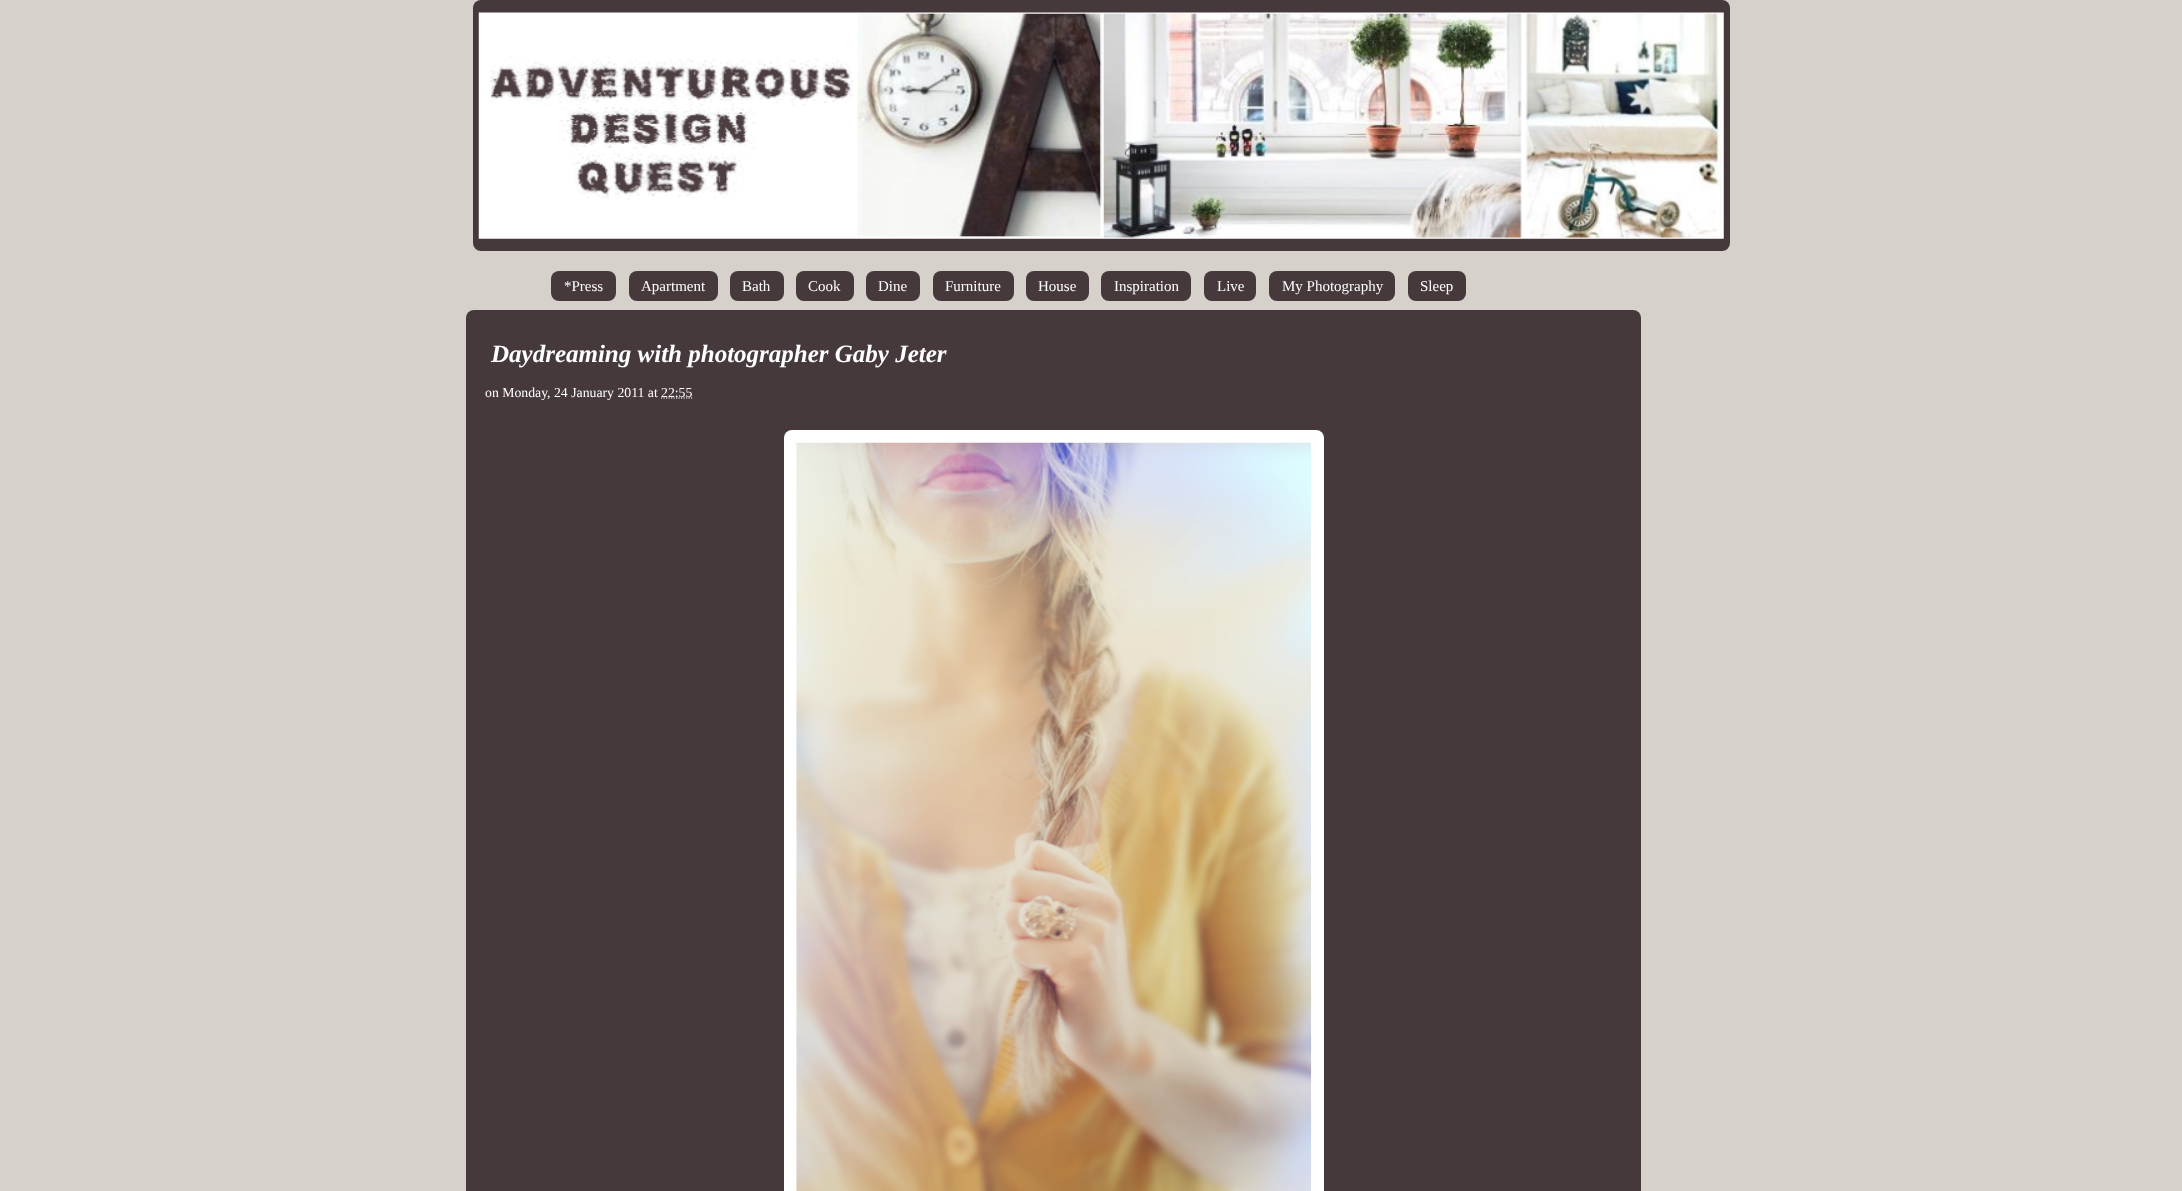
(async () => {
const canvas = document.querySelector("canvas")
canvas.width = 2182
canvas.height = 1191
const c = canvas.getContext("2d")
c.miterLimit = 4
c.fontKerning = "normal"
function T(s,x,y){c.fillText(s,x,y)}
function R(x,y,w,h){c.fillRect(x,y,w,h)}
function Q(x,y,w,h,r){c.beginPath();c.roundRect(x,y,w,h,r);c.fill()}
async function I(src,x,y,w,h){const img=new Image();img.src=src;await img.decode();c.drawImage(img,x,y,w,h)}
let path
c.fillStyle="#d7d1cc"
R(0,0,2182,1191)
c.fillStyle="#45393c"
Q(473,0,1257,251,8)
await I("1.png",478,12,1246,227)
Q(551,271,65,30,8)
c.font="15px Liberation Serif"
c.fillStyle="#fff"
T("*Press",564,291)
c.fillStyle="#45393c"
Q(629,271,89,30,8)
c.fillStyle="#fff"
T("Apartment",641,291)
c.fillStyle="#45393c"
Q(730,271,54,30,8)
c.fillStyle="#fff"
T("Bath",742,291)
c.fillStyle="#45393c"
Q(796,271,58,30,8)
c.fillStyle="#fff"
T("Cook",808,291)
c.fillStyle="#45393c"
Q(866,271,54,30,8)
c.fillStyle="#fff"
T("Dine",878,291)
c.fillStyle="#45393c"
Q(933,271,81,30,8)
c.fillStyle="#fff"
T("Furniture",945,291)
c.fillStyle="#45393c"
Q(1026,271,63,30,8)
c.fillStyle="#fff"
T("House",1038,291)
c.fillStyle="#45393c"
Q(1101,271,90,30,8)
c.fillStyle="#fff"
T("Inspiration",1114,291)
c.fillStyle="#45393c"
Q(1204,271,52,30,8)
c.fillStyle="#fff"
T("Live",1217,291)
c.fillStyle="#45393c"
Q(1269,271,126,30,8)
c.fillStyle="#fff"
T("My Photography",1282,291)
c.fillStyle="#45393c"
Q(1408,271,58,30,8)
c.fillStyle="#fff"
T("Sleep",1420,291)
c.fillStyle="#45393c"
Q(466,310,1175,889,8)
c.font="italic bold 25px Liberation Serif"
c.fillStyle="#fff"
T("Daydreaming with photographer Gaby Jeter",491,362)
c.font="13.75px Liberation Serif"
T("on Monday, 24 January 2011 at",485,397)
path = new Path2D("M661 398h31.5")
c.strokeStyle="#fff"
c.lineWidth=1.2
c.setLineDash([1.25,1.25])
c.stroke(path)
T("22:55",661,397)
Q(784,430,540,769,8)
await I("2.png",796,442,516,749)
})()
